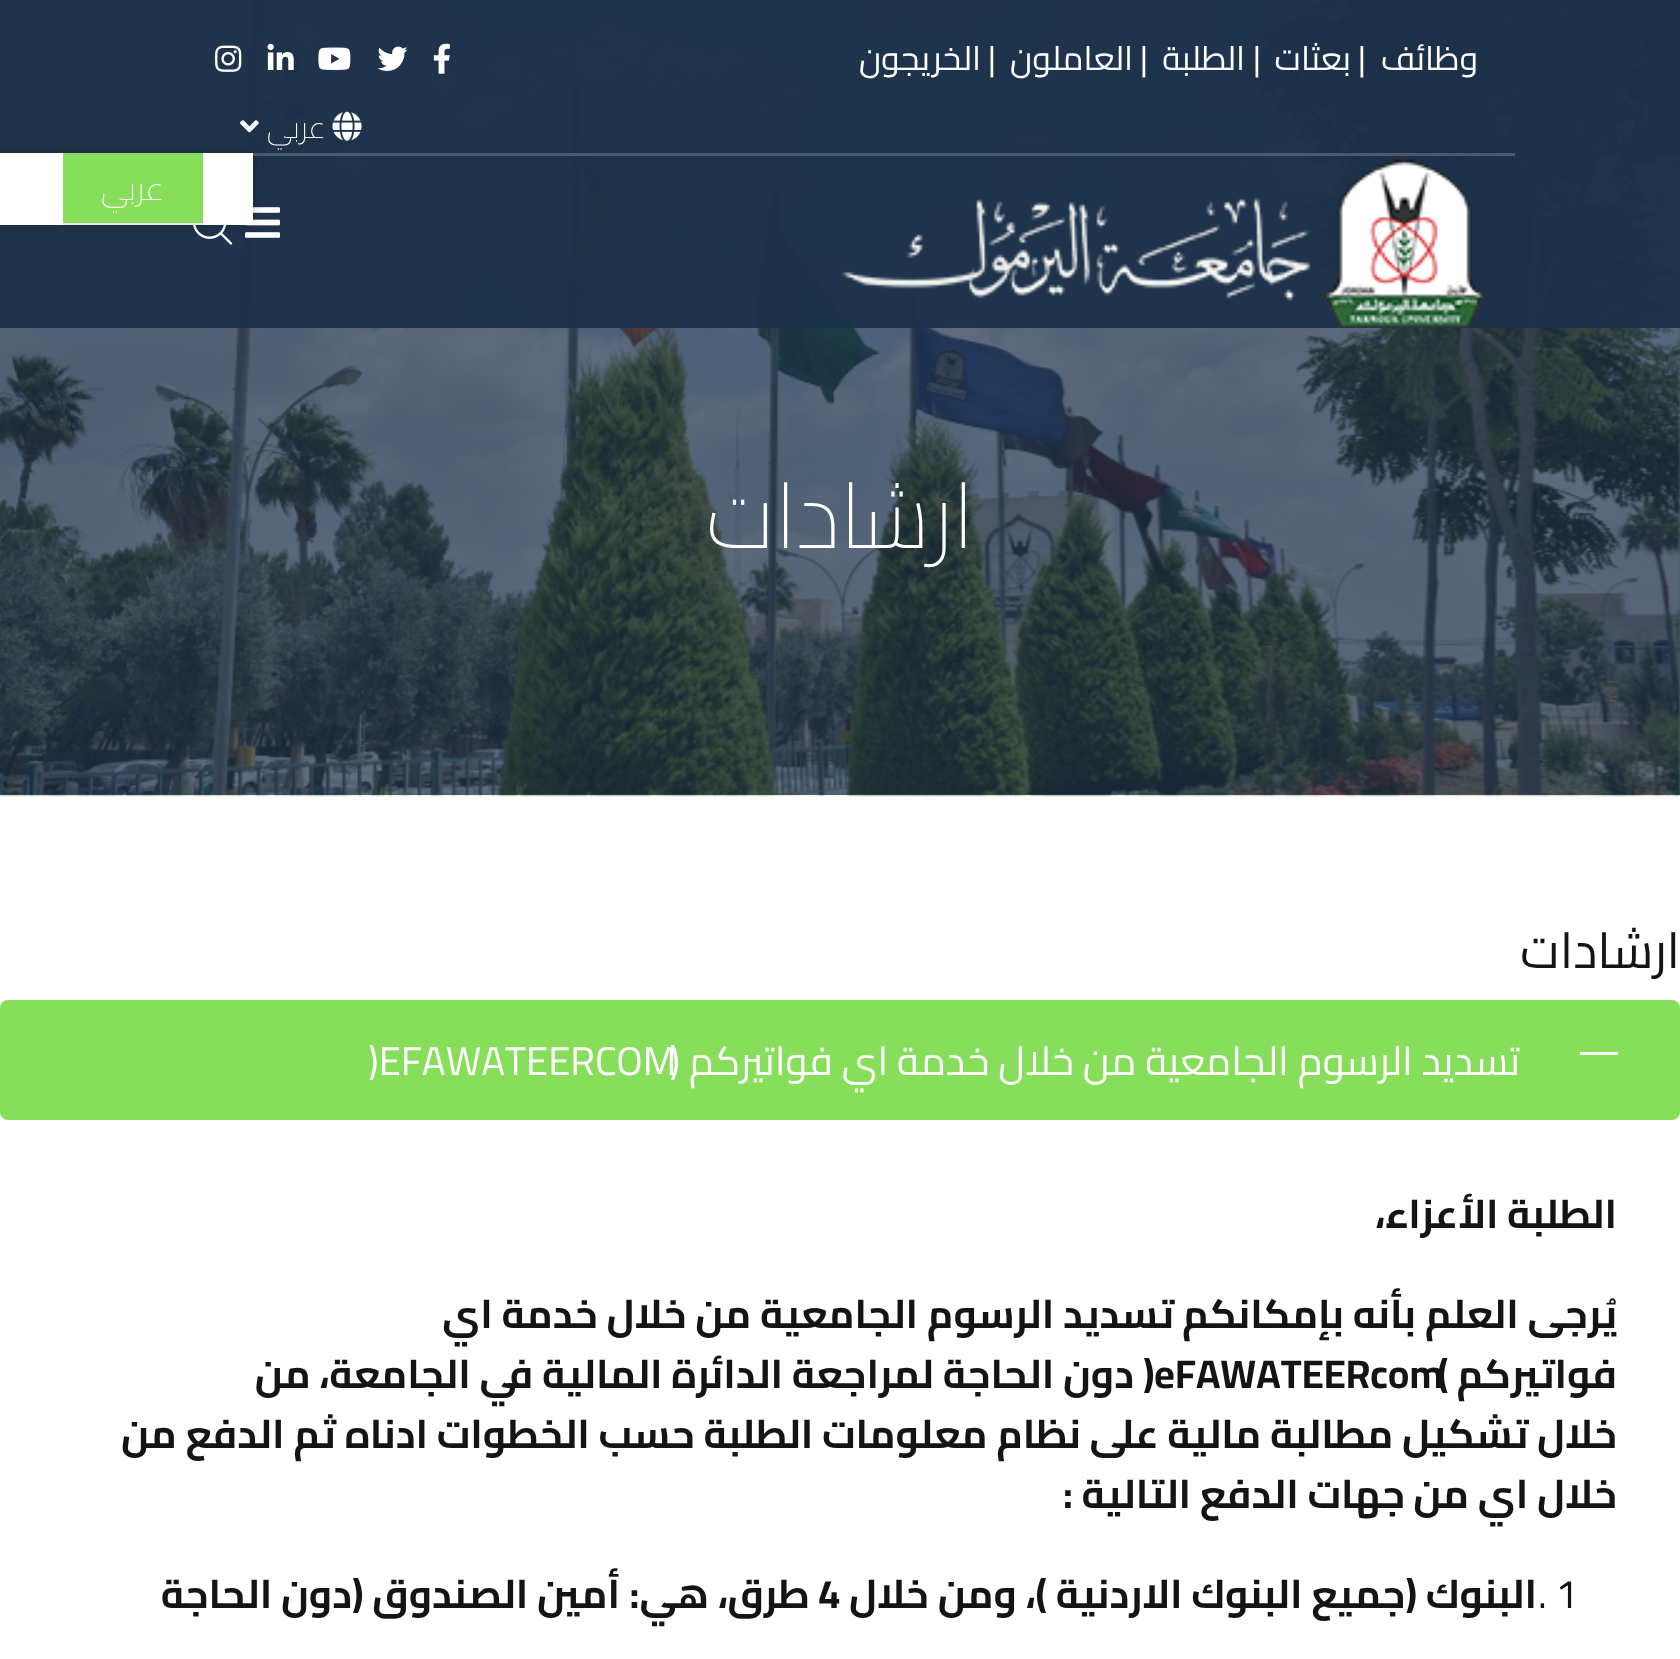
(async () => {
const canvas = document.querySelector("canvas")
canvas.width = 1680
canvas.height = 1659
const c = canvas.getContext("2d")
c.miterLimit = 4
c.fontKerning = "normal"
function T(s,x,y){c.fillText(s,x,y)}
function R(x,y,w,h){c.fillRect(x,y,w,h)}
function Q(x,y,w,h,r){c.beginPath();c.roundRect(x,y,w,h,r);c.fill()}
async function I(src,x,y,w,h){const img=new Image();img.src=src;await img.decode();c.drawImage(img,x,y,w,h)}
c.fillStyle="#fff"
R(0,0,1680,1659)
c.fillStyle="#3c654f"
R(0,0,1680,795)
await I("11.png",0,0,1680,797)
c.fillStyle="#1c314af2"
R(0,153,1680,175)
await I("8.png",842,153,643,175)
R(0,0,1680,155)
c.fillStyle="#ffffff33"
R(253,153,1262,3)
c.direction="rtl"
c.font="33.5px Cairo"
c.fillStyle="#fff"
T("وظائف",1478,70)
c.direction="ltr"
T("|",1358,70)
c.direction="rtl"
T("بعثات",1351,70)
c.direction="ltr"
T("|",1253,70)
c.direction="rtl"
T("الطلبة",1245,70)
c.direction="ltr"
T("|",1140,70)
c.direction="rtl"
T("العاملون",1133,70)
c.direction="ltr"
T("|",988,70)
c.direction="rtl"
T("الخريجون",981,70)
await I("1.png",433,43,17,31)
await I("2.png",377,46,31,25)
await I("3.png",318,47,33,23)
await I("4.png",267,43,27,27)
await I("5.png",215,45,27,27)
await I("6.png",332,111,30,30)
c.font="200 30px Cairo"
T("عربي",326,138)
await I("7.png",240,120,19,13)
await I("9.png",245,207,35,31)
await I("10.png",193,225,40,20)
c.fillStyle="#00000033"
c.filter="blur(6px)"
c.beginPath()
c.rect(-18,153,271,72)
c.fill()
c.filter="none"
c.fillStyle="#fff"
R(0,153,253,72)
c.fillStyle="#87de5b"
R(63,153,140,70)
c.fillStyle="#e8e8e8"
R(63,223,140,2)
c.font="200 32px Cairo"
c.fillStyle="#fff"
T("عربي",164,200)
c.font="200 90px Cairo"
T("ارشادات",974,548)
c.font="50px Cairo"
c.fillStyle="#141414"
T("ارشادات",1680,968)
c.fillStyle="#87de5b"
Q(0,1000,1680,120,8)
c.fillStyle="#fff"
R(1580,1052,38,3)
c.direction="ltr"
c.font="40px Cairo"
T(")EFAWATEERCOM",368,1075)
c.direction="rtl"
T("تسديد الرسوم الجامعية من خلال خدمة اي فواتيركم (",1520,1075)
c.font="bold 40px Cairo"
c.fillStyle="#141414"
T("الطلبة الأعزاء،",1617,1228)
T("يُرجى العلم بأنه بإمكانكم",1617,1328)
T("تسديد الرسوم الجامعية من خلال خدمة اي",1174,1328)
T("فواتيركم",1617,1388)
c.direction="ltr"
T("(",1437,1388)
T("eFAWATEERcom",1154,1388)
T(")",1143,1388)
c.direction="rtl"
T("دون الحاجة لمراجعة الدائرة المالية في الجامعة، من",1134,1388)
T("خلال تشكيل مطالبة مالية على نظام معلومات الطلبة حسب الخطوات ادناه ثم الدفع من",1617,1448)
T("خلال اي من",1617,1508)
T("جهات الدفع التالية :",1405,1508)
c.direction="ltr"
c.font="40px Cairo"
T(". 1",1538,1608)
c.direction="rtl"
c.font="bold 40px Cairo"
T("البنوك (جميع البنوك الاردنية",1537,1608)
T(")، ومن خلال",1047,1608)
c.direction="ltr"
T("4",818,1608)
c.direction="rtl"
T("طرق، هي:",810,1608)
T("أمين الصندوق (",620,1608)
T("دون الحاجة",352,1608)
})()
